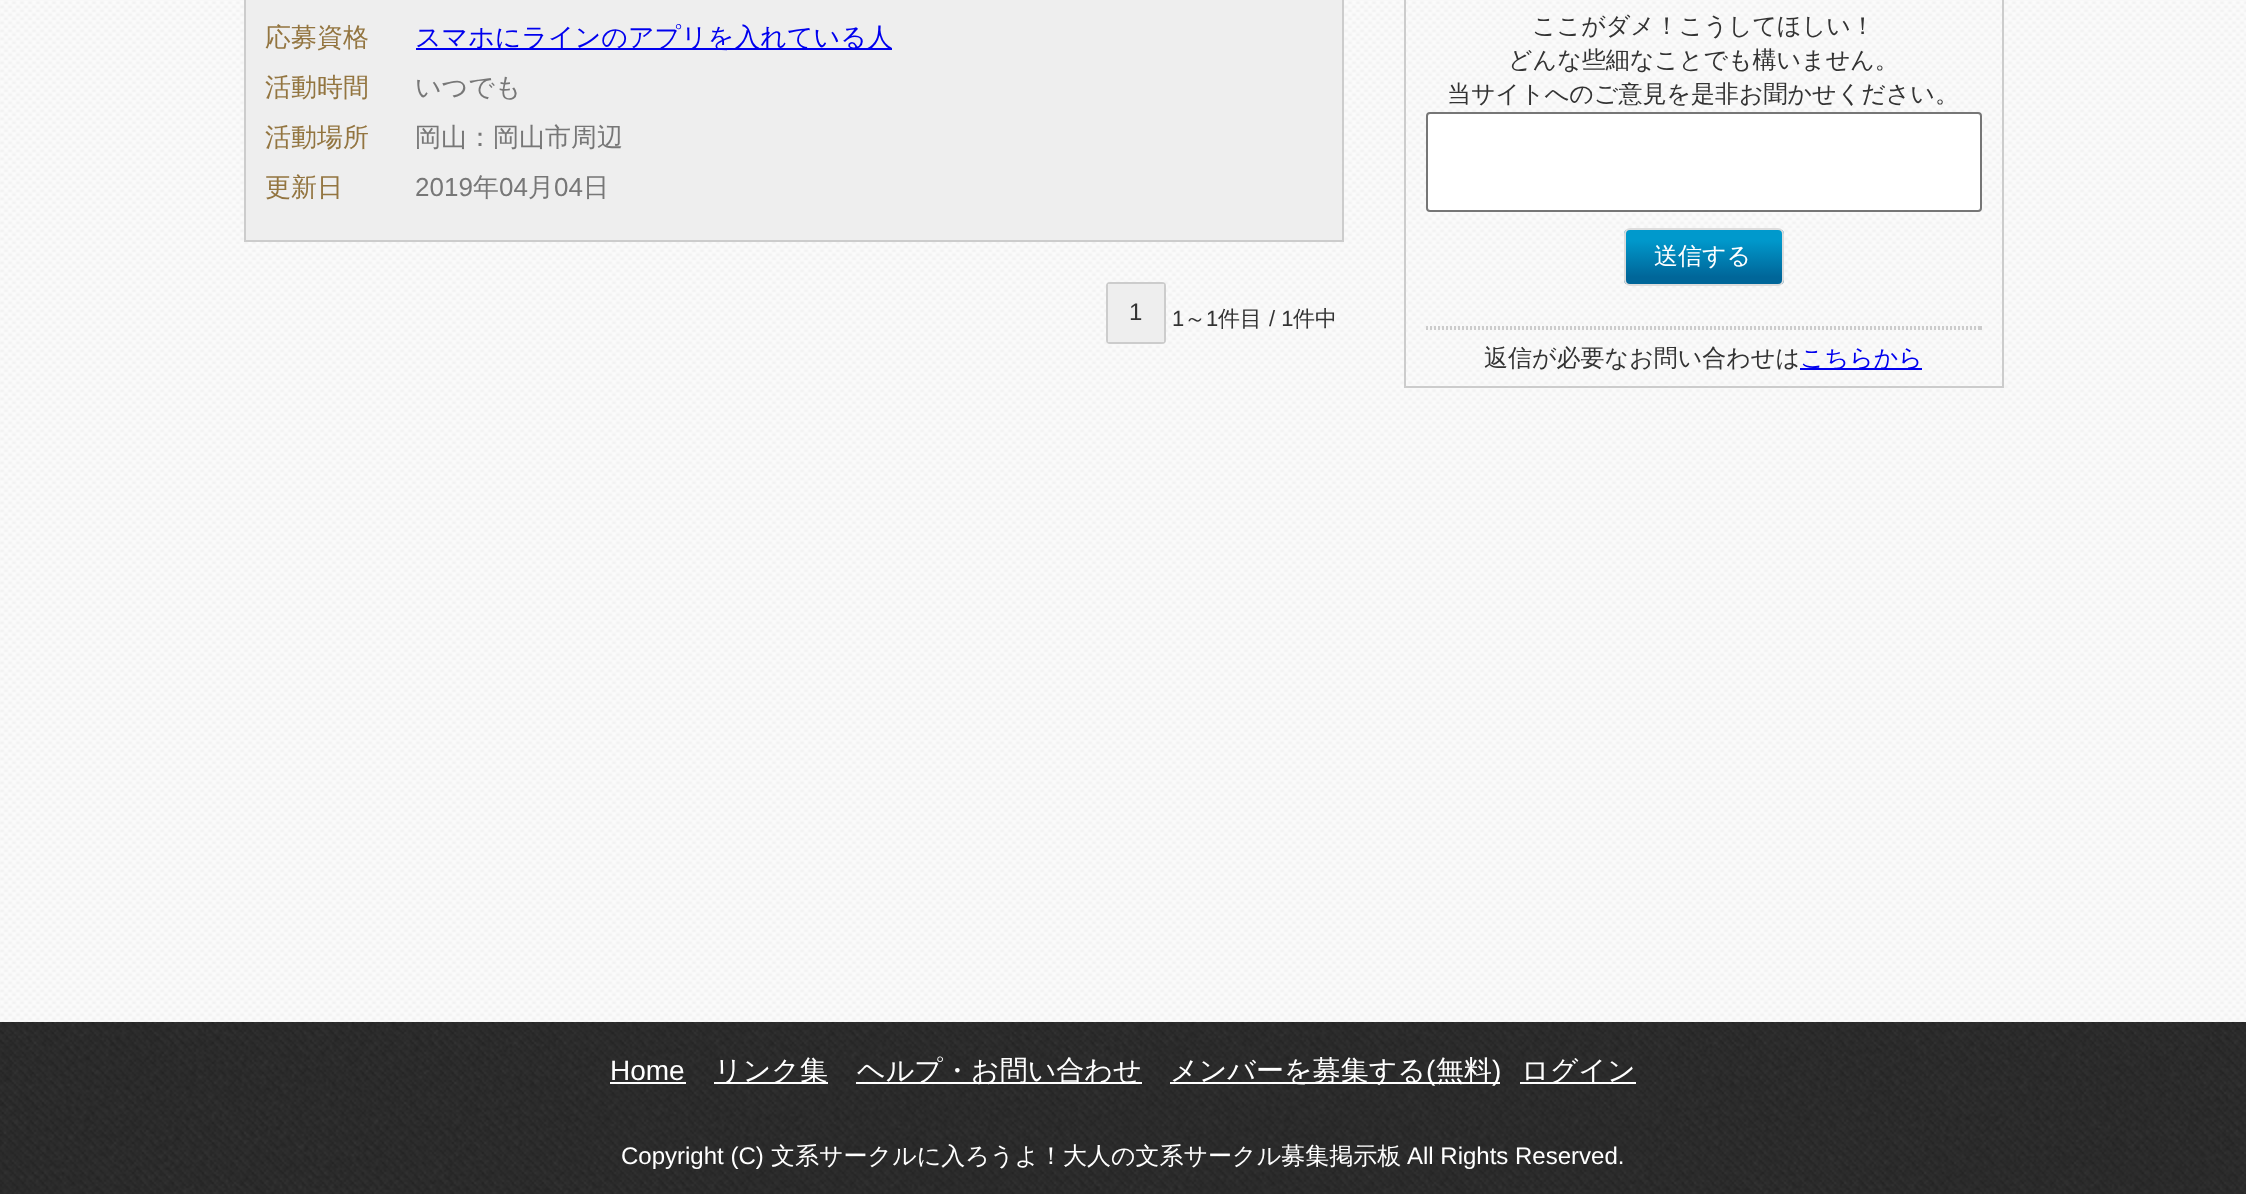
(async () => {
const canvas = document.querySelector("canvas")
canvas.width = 2246
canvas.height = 1194
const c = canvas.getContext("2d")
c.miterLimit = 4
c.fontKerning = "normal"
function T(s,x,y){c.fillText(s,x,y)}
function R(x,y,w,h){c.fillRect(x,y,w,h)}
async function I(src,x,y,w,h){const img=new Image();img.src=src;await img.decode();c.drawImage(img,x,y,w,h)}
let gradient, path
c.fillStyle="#fff"
R(0,0,2246,1194)
await I("1.png",0,0,2246,1022)
c.fillStyle="#eee"
c.beginPath()
c.rect(245,-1,1098,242)
c.fill()
c.strokeStyle="#ccc"
c.lineWidth=2
c.stroke()
c.font="500 26px WenQuanYi Zen Hei"
c.fillStyle="#937540"
T("応募資格",265,46)
c.fillStyle="#00e"
R(416,48,476,2)
T("スマホにラインのアプリを入れている人",415,46)
c.fillStyle="#937540"
T("活動時間",265,96)
c.fillStyle="#777"
T("いつでも",415,96)
c.fillStyle="#937540"
T("活動場所",265,146)
c.fillStyle="#777"
T("岡山：岡山市周辺",415,146)
c.fillStyle="#937540"
T("更新日",265,196)
c.font="26px Liberation Sans"
c.fillStyle="#777"
T("2019",415,196)
c.font="500 26px WenQuanYi Zen Hei"
T("年",473,196)
c.font="26px Liberation Sans"
T("04",499,196)
c.font="500 26px WenQuanYi Zen Hei"
T("月",528,196)
c.font="26px Liberation Sans"
T("04",554,196)
c.font="500 26px WenQuanYi Zen Hei"
T("日",583,196)
c.beginPath()
c.roundRect(1107,283,58,60,3)
c.stroke()
c.fillStyle="#eee"
R(1108,284,56,58)
c.font="24px Liberation Sans"
c.fillStyle="#333"
T("1",1129,320)
c.font="22px Liberation Sans"
T("1",1172,326)
c.font="500 22px WenQuanYi Zen Hei"
T("～",1184,326)
c.font="22px Liberation Sans"
T("1",1206,326)
c.font="500 22px WenQuanYi Zen Hei"
T("件目",1218,326)
c.font="22px Liberation Sans"
T("/ 1",1269,326)
c.font="500 22px WenQuanYi Zen Hei"
T("件中",1293,326)
c.strokeRect(1405,-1,598,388)
c.font="500 24px WenQuanYi Zen Hei"
T("ここがダメ！こうしてほしい！",1532,34)
T("どんな些細なことでも構いません。",1508,68)
T("当サイトへのご意見を是非お聞かせください。",1447,102)
c.fillStyle="#fff"
c.beginPath()
c.roundRect(1427,113,554,98,3)
c.fill()
c.strokeStyle="#767676"
c.stroke()
c.save()
c.beginPath()
c.roundRect(1624,228,160,58,6)
c.clip()
gradient = c.createLinearGradient(1626,230,1626,284)
gradient.addColorStop(.18,"#09c")
gradient.addColorStop(.87,"#069")
c.fillStyle = gradient
R(1624,230,160,54)
c.restore()
c.beginPath()
c.roundRect(1625,229,158,56,5)
c.strokeStyle="#ddd"
c.stroke()
T("送信する",1654,264)
path = new Path2D("M1426 327h556")
c.strokeStyle="#ccc"
c.setLineDash([2,2])
c.stroke(path)
c.fillStyle="#ccc"
R(1980,326,2,4)
path = new Path2D("M1426 329h556")
c.stroke(path)
c.fillStyle="#333"
T("返信が必要なお問い合わせは",1484,366)
c.fillStyle="#00e"
R(1800,368,122,2)
T("こちらから",1800,366)
await I("2.png",0,1022,2246,172)
c.font="28px Liberation Sans"
c.fillStyle="#fff"
T("Home",610,1080)
R(610,1082,76,2)
R(714,1082,114,2)
c.font="500 28px WenQuanYi Zen Hei"
T("リンク集",714,1080)
R(856,1082,286,2)
T("ヘルプ・お問い合わせ",857,1080)
R(1170,1082,330,2)
T("メンバーを募集する",1170,1080)
c.font="28px Liberation Sans"
T("(",1426,1080)
c.font="500 28px WenQuanYi Zen Hei"
T("無料",1436,1080)
c.font="28px Liberation Sans"
T(")",1492,1080)
R(1520,1082,116,2)
c.font="500 28px WenQuanYi Zen Hei"
T("ログイン",1521,1080)
c.font="24px Liberation Sans"
T("Copyright (C)",621,1164)
c.font="500 24px WenQuanYi Zen Hei"
T("文系サークルに入ろうよ！大人の文系サークル募集掲示板",771,1164)
c.font="24px Liberation Sans"
T("All Rights Reserved.",1407,1164)
})()
